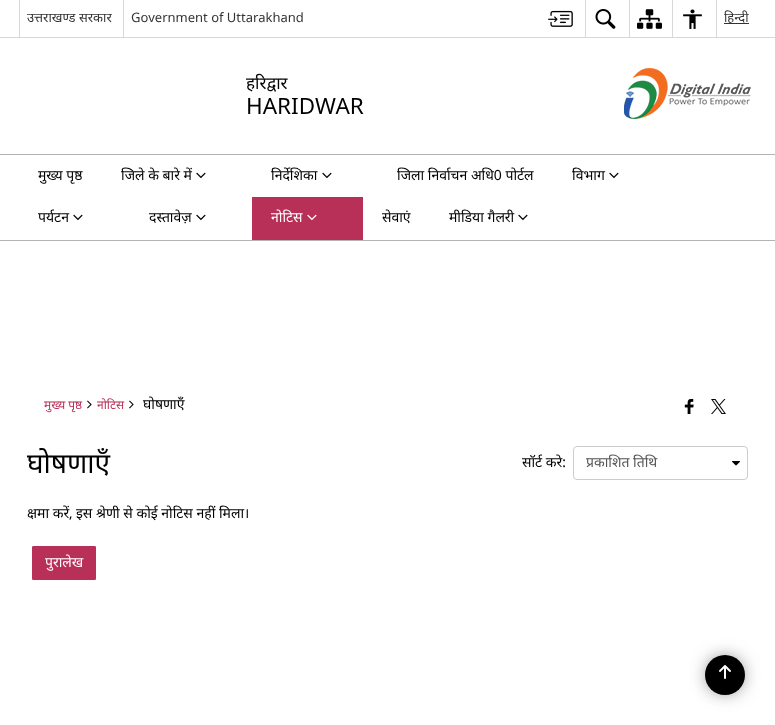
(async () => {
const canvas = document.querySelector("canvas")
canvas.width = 775
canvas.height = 725
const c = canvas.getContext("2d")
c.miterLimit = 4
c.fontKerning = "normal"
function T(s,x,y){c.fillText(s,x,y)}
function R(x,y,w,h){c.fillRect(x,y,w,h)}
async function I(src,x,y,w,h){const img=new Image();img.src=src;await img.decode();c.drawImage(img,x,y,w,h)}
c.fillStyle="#fff"
R(0,0,775,725)
c.fillStyle="#d8d8d8"
R(0,37,775,1)
R(19,0,1,37)
c.font="13px Noto Sans"
c.fillStyle="#333"
T("उत्तराखण्ड सरकार",27,22)
c.fillStyle="#d8d8d8"
R(123,0,1,37)
c.font="13px 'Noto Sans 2'"
c.fillStyle="#333"
T("Government of Uttarakhand",131,22)
await I("1.png",548,10,25,17)
c.fillStyle="#d8d8d8"
R(585,0,1,37)
await I("2.png",595,9,21,20)
R(629,0,1,37)
await I("3.png",637,9,25,20)
R(672,0,1,37)
await I("4.png",683,9,19,20)
R(716,0,1,37)
c.fillStyle="#333"
R(724,23,25,1)
c.font="13px Noto Sans"
T("हिन्दी",724,22)
c.font="17px Noto Sans"
c.fillStyle="#000"
T("हरिद्वार",246,89)
c.font="22.5px 'Noto Sans 2'"
T("HARIDWAR",246,114)
await I("5.png",624,68,127,51)
c.fillStyle="#b3b3b3"
R(0,154,775,1)
R(0,240,775,1)
c.font="14px Noto Sans"
c.fillStyle="#000"
T("मुख्य पृष्ठ",38,180)
T("जिले के बारे में",121,180)
await I("6.png",196,172,10,7)
T("निर्देशिका",271,180)
await I("6.png",322,172,10,7)
T("जिला निर्वाचन अधि0 पोर्टल",397,180)
T("विभाग",572,180)
await I("6.png",609,172,10,7)
T("पर्यटन",38,222)
await I("6.png",73,214,10,7)
T("दस्तावेज़",149,222)
await I("6.png",196,214,10,7)
c.fillStyle="#b83058"
R(252,197,111,43)
c.fillStyle="#fff"
T("नोटिस",271,222)
await I("7.png",307,214,10,7)
c.fillStyle="#000"
T("सेवाएं",382,222)
T("मीडिया गैलरी",449,222)
await I("6.png",518,214,10,7)
c.font="12px Noto Sans"
c.fillStyle="#b83058"
T("मुख्य पृष्ठ",44,409)
await I("8.png",87,400,5,9)
T("नोटिस",97,409)
await I("8.png",129,400,5,9)
c.font="14px Noto Sans"
c.fillStyle="#000"
T("घोषणाएँ",143,409)
await I("9.png",684,399,10,15)
await I("10.png",711,399,15,15)
c.font="28px Noto Sans"
T("घोषणाएँ",27,473)
c.font="14px Noto Sans"
T("सॉर्ट करे",522,467)
c.font="14px 'Noto Sans 2'"
T(":",562,467)
await I("11.png",732,461,8,5)
c.beginPath()
c.roundRect(573.5,446.5,174,33,3.5)
c.strokeStyle="#ccc"
c.stroke()
c.font="14px Noto Sans"
c.fillStyle="#555"
T("प्रकाशित तिथि",586,467)
c.fillStyle="#000"
T("क्षमा करें",27,518)
c.font="14px 'Noto Sans 2'"
T(",",69,518)
c.font="14px Noto Sans"
T("इस श्रेणी से कोई नोटिस नहीं मिला।",76,518)
c.fillStyle="#b83058"
c.beginPath()
c.roundRect(32.5,546.5,63,33,.5)
c.fill()
c.strokeStyle="#b83058"
c.stroke()
c.fillStyle="#fff"
T("पुरालेख",45,567)
c.fillStyle="#3c3c3c"
c.filter="blur(9.5px)"
c.beginPath()
c.roundRect(710,660,30,30,15)
c.fill()
c.filter="none"
c.fillStyle="#000"
c.beginPath()
c.arc(725,675,20,0,7)
c.fill()
await I("12.png",719,665,12,14)
})()
